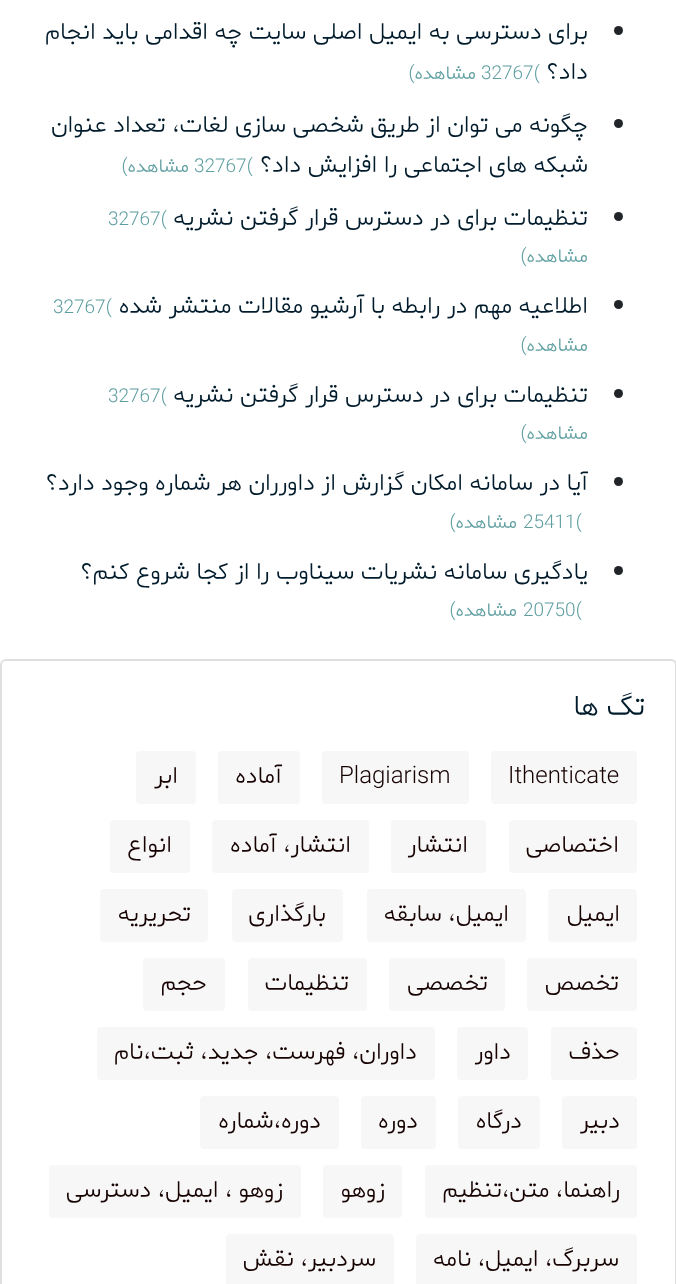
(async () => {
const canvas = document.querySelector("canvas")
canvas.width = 676
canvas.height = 1284
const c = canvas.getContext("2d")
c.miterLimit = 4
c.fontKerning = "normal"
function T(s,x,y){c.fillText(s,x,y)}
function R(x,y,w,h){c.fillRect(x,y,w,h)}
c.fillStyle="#fff"
R(0,0,676,1284)
c.fillStyle="#212529"
c.beginPath()
c.arc(618.5,30.5,4.5,0,7)
c.fill()
c.direction="rtl"
c.font="300 24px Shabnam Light"
c.fillStyle="#001b2b"
T("برای دسترسی به ایمیل اصلی سایت چه اقدامی باید انجام",588,39)
T("داد؟",588,79)
c.direction="ltr"
c.font="300 19px Shabnam Light"
c.fillStyle="#5f9ea0"
T("32767(",481,79)
c.direction="rtl"
T("مشاهده)",476,79)
c.fillStyle="#212529"
c.beginPath()
c.arc(618.5,123.5,4.5,0,7)
c.fill()
c.font="300 24px Shabnam Light"
c.fillStyle="#001b2b"
T("چگونه می توان از طریق شخصی سازی لغات، تعداد عنوان",588,132)
T("شبکه های اجتماعی را افزایش داد؟",588,172)
c.direction="ltr"
c.font="300 19px Shabnam Light"
c.fillStyle="#5f9ea0"
T("32767(",194,172)
c.direction="rtl"
T("مشاهده)",189,172)
c.fillStyle="#212529"
c.beginPath()
c.arc(618.5,216.5,4.5,0,7)
c.fill()
c.font="300 24px Shabnam Light"
c.fillStyle="#001b2b"
T("تنظیمات برای در دسترس قرار گرفتن نشریه",588,225)
c.direction="ltr"
c.font="300 19px Shabnam Light"
c.fillStyle="#5f9ea0"
T("32767(",108,225)
c.direction="rtl"
T("مشاهده)",588,262)
c.fillStyle="#212529"
c.beginPath()
c.arc(618.5,304.5,4.5,0,7)
c.fill()
c.font="300 24px Shabnam Light"
c.fillStyle="#001b2b"
T("اطلاعیه مهم در رابطه با آرشیو مقالات منتشر شده",588,313)
c.direction="ltr"
c.font="300 19px Shabnam Light"
c.fillStyle="#5f9ea0"
T("32767(",53,313)
c.direction="rtl"
T("مشاهده)",588,351)
c.fillStyle="#212529"
c.beginPath()
c.arc(618.5,393.5,4.5,0,7)
c.fill()
c.font="300 24px Shabnam Light"
c.fillStyle="#001b2b"
T("تنظیمات برای در دسترس قرار گرفتن نشریه",588,402)
c.direction="ltr"
c.font="300 19px Shabnam Light"
c.fillStyle="#5f9ea0"
T("32767(",108,402)
c.direction="rtl"
T("مشاهده)",588,439)
c.fillStyle="#212529"
c.beginPath()
c.arc(618.5,481.5,4.5,0,7)
c.fill()
c.font="300 24px Shabnam Light"
c.fillStyle="#001b2b"
T("آیا در سامانه امکان گزارش از داورران هر شماره وجود دارد؟",588,490)
c.direction="ltr"
c.font="300 19px Shabnam Light"
c.fillStyle="#5f9ea0"
T("25411(",523,528)
c.direction="rtl"
T("مشاهده)",517,528)
c.fillStyle="#212529"
c.beginPath()
c.arc(618.5,570.5,4.5,0,7)
c.fill()
c.font="300 24px Shabnam Light"
c.fillStyle="#001b2b"
T("یادگیری سامانه نشریات سیناوب را از کجا شروع کنم؟",588,579)
c.direction="ltr"
c.font="300 19px Shabnam Light"
c.fillStyle="#5f9ea0"
T("20750(",523,616)
c.direction="rtl"
T("مشاهده)",517,616)
c.beginPath()
c.roundRect(1,660,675,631,5)
c.strokeStyle="#dfdfdf"
c.lineWidth=2
c.stroke()
c.font="300 29px Shabnam Light"
c.fillStyle="#001b2b"
T("تگ ها",645,715)
c.fillStyle="#f7f7f7"
c.beginPath()
c.roundRect(490,750,148,55,5)
c.fill()
c.strokeStyle="#fff"
c.stroke()
c.direction="ltr"
c.font="300 24px Shabnam Light"
c.fillStyle="#170202"
T("Ithenticate",508,783)
c.fillStyle="#f7f7f7"
c.beginPath()
c.roundRect(321,750,149,55,5)
c.fill()
c.stroke()
c.fillStyle="#170202"
T("Plagiarism",339,783)
c.fillStyle="#f7f7f7"
c.beginPath()
c.roundRect(217,750,84,55,5)
c.fill()
c.stroke()
c.direction="rtl"
c.fillStyle="#170202"
T("آماده",282,783)
c.fillStyle="#f7f7f7"
c.beginPath()
c.roundRect(135,750,62,55,5)
c.fill()
c.stroke()
c.fillStyle="#170202"
T("ابر",178,783)
c.fillStyle="#f7f7f7"
c.beginPath()
c.roundRect(508,819,130,55,5)
c.fill()
c.stroke()
c.fillStyle="#170202"
T("اختصاصی",619,852)
c.fillStyle="#f7f7f7"
c.beginPath()
c.roundRect(390,819,97,55,5)
c.fill()
c.stroke()
c.fillStyle="#170202"
T("انتشار",468,852)
c.fillStyle="#f7f7f7"
c.beginPath()
c.roundRect(211,819,159,55,5)
c.fill()
c.stroke()
c.fillStyle="#170202"
T("انتشار، آماده",351,852)
c.fillStyle="#f7f7f7"
c.beginPath()
c.roundRect(109,819,82,55,5)
c.fill()
c.stroke()
c.fillStyle="#170202"
T("انواع",172,852)
c.fillStyle="#f7f7f7"
c.beginPath()
c.roundRect(547,888,91,55,5)
c.fill()
c.stroke()
c.fillStyle="#170202"
T("ایمیل",620,921)
c.fillStyle="#f7f7f7"
c.beginPath()
c.roundRect(366,888,161,55,5)
c.fill()
c.stroke()
c.fillStyle="#170202"
T("ایمیل، سابقه",509,921)
c.fillStyle="#f7f7f7"
c.beginPath()
c.roundRect(231,888,113,55,5)
c.fill()
c.stroke()
c.fillStyle="#170202"
T("بارگذاری",326,921)
c.fillStyle="#f7f7f7"
c.beginPath()
c.roundRect(99,888,110,55,5)
c.fill()
c.stroke()
c.fillStyle="#170202"
T("تحریریه",191,921)
c.fillStyle="#f7f7f7"
c.beginPath()
c.roundRect(526,957,112,55,5)
c.fill()
c.stroke()
c.fillStyle="#170202"
T("تخصص",619,990)
c.fillStyle="#f7f7f7"
c.beginPath()
c.roundRect(388,957,118,55,5)
c.fill()
c.stroke()
c.fillStyle="#170202"
T("تخصصی",488,990)
c.fillStyle="#f7f7f7"
c.beginPath()
c.roundRect(247,957,121,55,5)
c.fill()
c.stroke()
c.fillStyle="#170202"
T("تنظیمات",349,990)
c.fillStyle="#f7f7f7"
c.beginPath()
c.roundRect(142,957,84,55,5)
c.fill()
c.stroke()
c.fillStyle="#170202"
T("حجم",207,990)
c.fillStyle="#f7f7f7"
c.beginPath()
c.roundRect(550,1026,88,55,5)
c.fill()
c.stroke()
c.fillStyle="#170202"
T("حذف",620,1059)
c.fillStyle="#f7f7f7"
c.beginPath()
c.roundRect(456,1026,73,55,5)
c.fill()
c.stroke()
c.fillStyle="#170202"
T("داور",511,1059)
c.fillStyle="#f7f7f7"
c.beginPath()
c.roundRect(96,1026,340,55,5)
c.fill()
c.stroke()
c.fillStyle="#170202"
T("داوران، فهرست، جدید، ثبت،نام",417,1059)
c.fillStyle="#f7f7f7"
c.beginPath()
c.roundRect(561,1095,77,55,5)
c.fill()
c.stroke()
c.fillStyle="#170202"
T("دبیر",620,1128)
c.fillStyle="#f7f7f7"
c.beginPath()
c.roundRect(457,1095,84,55,5)
c.fill()
c.stroke()
c.fillStyle="#170202"
T("درگاه",522,1128)
c.fillStyle="#f7f7f7"
c.beginPath()
c.roundRect(360,1095,77,55,5)
c.fill()
c.stroke()
c.fillStyle="#170202"
T("دوره",418,1128)
c.fillStyle="#f7f7f7"
c.beginPath()
c.roundRect(199,1095,141,55,5)
c.fill()
c.stroke()
c.fillStyle="#170202"
T("دوره،شماره",321,1128)
c.fillStyle="#f7f7f7"
c.beginPath()
c.roundRect(424,1164,214,55,5)
c.fill()
c.stroke()
c.fillStyle="#170202"
T("راهنما، متن،تنظیم",620,1197)
c.fillStyle="#f7f7f7"
c.beginPath()
c.roundRect(322,1164,81,55,5)
c.fill()
c.stroke()
c.fillStyle="#170202"
T("زوهو",385,1197)
c.fillStyle="#f7f7f7"
c.beginPath()
c.roundRect(48,1164,254,55,5)
c.fill()
c.stroke()
c.fillStyle="#170202"
T("زوهو ، ایمیل، دسترسی",283,1197)
c.fillStyle="#f7f7f7"
c.beginPath()
c.roundRect(415,1233,223,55,5)
c.fill()
c.stroke()
c.fillStyle="#170202"
T("سربرگ، ایمیل، نامه",619,1266)
c.fillStyle="#f7f7f7"
c.beginPath()
c.roundRect(225,1233,170,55,5)
c.fill()
c.stroke()
c.fillStyle="#170202"
T("سردبیر، نقش",376,1266)
})()
